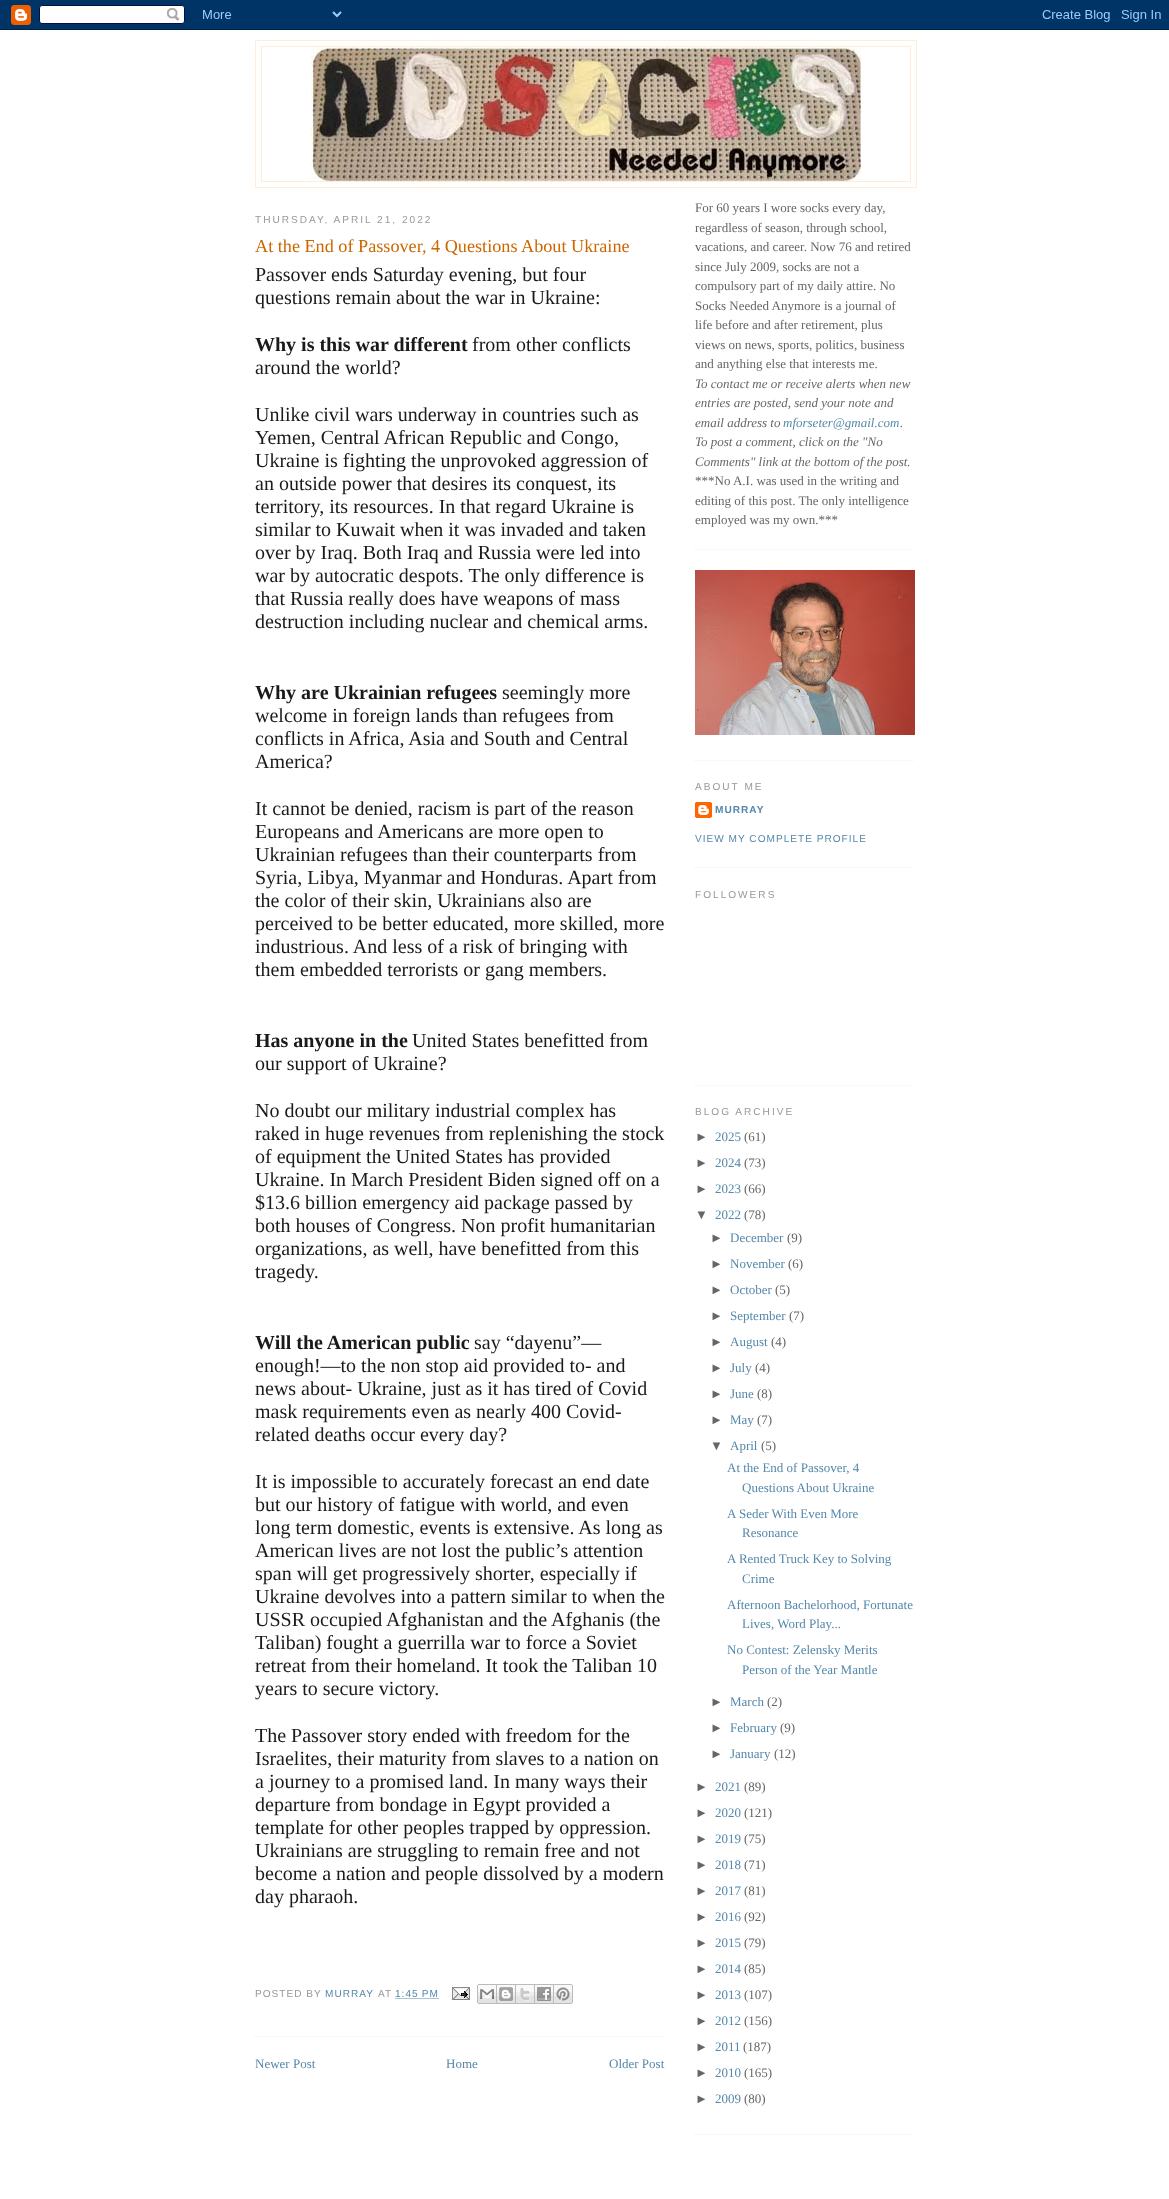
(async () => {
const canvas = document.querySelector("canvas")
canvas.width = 1169
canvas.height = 2199
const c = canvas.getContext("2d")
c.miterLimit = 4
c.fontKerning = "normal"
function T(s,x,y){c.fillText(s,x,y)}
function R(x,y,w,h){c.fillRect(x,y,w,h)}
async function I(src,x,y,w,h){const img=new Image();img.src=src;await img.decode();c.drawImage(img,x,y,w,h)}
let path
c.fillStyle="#fff"
R(0,0,1169,2199)
await I("1.png",0,0,1169,30)
c.strokeStyle="#ffecd9"
c.strokeRect(255.5,40.5,661,147)
c.strokeRect(261.5,46.5,649,135)
await I("2.png",311,47,550,134)
c.letterSpacing="2px"
c.font="10.1px Liberation Sans"
c.fillStyle="#999"
T("THURSDAY, APRIL 21, 2022",255,223)
path = new Path2D("M255 2036.5h410")
c.setLineDash([1,1])
c.stroke(path)
c.letterSpacing="0px"
c.font="18.2px Liberation Serif"
c.fillStyle="#c60"
T("At the End of Passover, 4 Questions About Ukraine",255,252)
c.font="20px Liberation Serif"
c.fillStyle="#1a1a1a"
T("Passover ends Saturday evening, but four",255,281)
T("questions remain about the war in Ukraine:",255,304)
c.font="bold 20px Liberation Serif"
T("Why is this war different",255,351)
c.font="20px Liberation Serif"
T("from other conflicts",472,351)
T("around the world?",255,374)
T("Unlike civil wars underway in countries such as",255,421)
T("Yemen, Central African Republic and Congo,",255,444)
T("Ukraine is fighting the unprovoked aggression of",255,467)
T("an outside power that desires its conquest, its",255,490)
T("territory, its resources. In that regard Ukraine is",255,513)
T("similar to Kuwait when it was invaded and taken",255,536)
T("over by Iraq. Both Iraq and Russia were led into",255,559)
T("war by autocratic despots. The only difference is",255,582)
T("that Russia really does have weapons of mass",255,605)
T("destruction including nuclear and chemical arms.",255,628)
c.font="bold 20px Liberation Serif"
T("Why are Ukrainian refugees",255,699)
c.font="20px Liberation Serif"
T("seemingly more",502,699)
T("welcome in foreign lands than refugees from",255,722)
T("conflicts in Africa, Asia and South and Central",255,745)
T("America?",255,768)
T("It cannot be denied, racism is part of the reason",255,815)
T("Europeans and Americans are more open to",255,838)
T("Ukrainian refugees than their counterparts from",255,861)
T("Syria, Libya, Myanmar and Honduras. Apart from",255,884)
T("the color of their skin, Ukrainians also are",255,907)
T("perceived to be better educated, more skilled, more",255,930)
T("industrious. And less of a risk of bringing with",255,953)
T("them embedded terrorists or gang members.",255,976)
c.font="bold 20px Liberation Serif"
T("Has anyone in the",255,1047)
c.font="20px Liberation Serif"
T("United States benefitted from",412,1047)
T("our support of Ukraine?",255,1070)
T("No doubt our military industrial complex has",255,1117)
T("raked in huge revenues from replenishing the stock",255,1140)
T("of equipment the United States has provided",255,1163)
T("Ukraine. In March President Biden signed off on a",255,1186)
T("$13.6 billion emergency aid package passed by",255,1209)
T("both houses of Congress. Non profit humanitarian",255,1232)
T("organizations, as well, have benefitted from this",255,1255)
T("tragedy.",255,1278)
c.font="bold 20px Liberation Serif"
T("Will the American public",255,1349)
c.font="20px Liberation Serif"
T("say “dayenu”—",474,1349)
T("enough!—to the non stop aid provided to- and",255,1372)
T("news about- Ukraine, just as it has tired of Covid",255,1395)
T("mask requirements even as nearly 400 Covid-",255,1418)
T("related deaths occur every day?",255,1441)
T("It is impossible to accurately forecast an end date",255,1488)
T("but our history of fatigue with world, and even",255,1511)
T("long term domestic, events is extensive. As long as",255,1534)
T("American lives are not lost the public’s attention",255,1557)
T("span will get progressively shorter, especially if",255,1580)
T("Ukraine devolves into a pattern similar to when the",255,1603)
T("USSR occupied Afghanistan and the Afghanis (the",255,1626)
c.save()
c.beginPath()
c.rect(255,198,410,1926)
c.clip()
T("Taliban) fought a guerrilla war to force a Soviet",255,1649)
c.restore()
T("retreat from their homeland. It took the Taliban 10",255,1672)
T("years to secure victory.",255,1695)
c.save()
c.beginPath()
c.rect(255,198,410,1926)
c.clip()
T("The Passover story ended with freedom for the",255,1742)
c.restore()
T("Israelites, their maturity from slaves to a nation on",255,1765)
T("a journey to a promised land. In many ways their",255,1788)
T("departure from bondage in Egypt provided a",255,1811)
T("template for other peoples trapped by oppression.",255,1834)
T("Ukrainians are struggling to remain free and not",255,1857)
T("become a nation and people dissolved by a modern",255,1880)
T("day pharaoh.",255,1903)
c.letterSpacing="1px"
c.font="10.1px Liberation Sans"
c.fillStyle="#999"
T("POSTED BY",255,1997)
c.fillStyle="#58a"
T("MURRAY",325,1997)
c.fillStyle="#999"
T("AT",378,1997)
c.fillStyle="#58a"
T("1:45 PM",395,1997)
path = new Path2D("M395.5 1998.5h44")
c.strokeStyle="#58a"
c.stroke(path)
await I("3.png",452,1987,18,13)
await I("4.png",477,1984,20,20)
await I("5.png",497,1984,19,20)
await I("6.png",516,1984,19,20)
await I("7.png",535,1984,19,20)
await I("8.png",554,1984,19,20)
c.letterSpacing="0px"
c.font="13px Liberation Serif"
T("Newer Post",255,2068)
T("Home",446,2068)
T("Older Post",609,2068)
path = new Path2D("M695 549.5h220")
c.strokeStyle="#ffecd9"
c.stroke(path)
c.fillStyle="#666"
T("For 60 years I wore socks every day,",695,212)
T("regardless of season, through school,",695,232)
T("vacations, and career. Now 76 and retired",695,251)
T("since July 2009, socks are not a",695,271)
T("compulsory part of my daily attire. No",695,290)
T("Socks Needed Anymore is a journal of",695,310)
T("life before and after retirement, plus",695,329)
T("views on news, sports, politics, business",695,349)
T("and anything else that interests me.",695,368)
c.font="italic 13px Liberation Serif"
T("To contact me or receive alerts when new",695,388)
T("entries are posted, send your note and",695,407)
T("email address to",695,427)
c.fillStyle="#58a"
T("mforseter@gmail.com",783,427)
c.fillStyle="#666"
T(".",900,427)
T("To post a comment, click on the \"No",695,446)
T("Comments\" link at the bottom of the post.",695,466)
c.font="13px Liberation Serif"
T("***No A.I. was used in the writing and",695,485)
T("editing of this post. The only intelligence",695,505)
T("employed was my own.***",695,524)
path = new Path2D("M695 760.5h220")
c.stroke(path)
await I("9.png",695,570,220,165)
path = new Path2D("M695 867.5h220")
c.stroke(path)
c.letterSpacing="2px"
c.font="10.1px Liberation Sans"
c.fillStyle="#999"
T("ABOUT ME",695,790)
await I("10.png",695,802,17,16)
c.letterSpacing="1px"
c.font="bold 10.1px Liberation Sans"
c.fillStyle="#58a"
T("MURRAY",715,813)
c.font="10.1px Liberation Sans"
T("VIEW MY COMPLETE PROFILE",695,842)
path = new Path2D("M695 1085.5h220")
c.stroke(path)
c.letterSpacing="2px"
c.fillStyle="#999"
T("FOLLOWERS",695,898)
path = new Path2D("M695 2134.5h220")
c.stroke(path)
T("BLOG ARCHIVE",695,1115)
c.letterSpacing="0px"
c.font="13px Liberation Sans"
c.fillStyle="#666"
T("►",695,1141)
c.font="13px Liberation Serif"
c.fillStyle="#58a"
T("2025",715,1141)
c.fillStyle="#666"
T("(61)",744,1141)
c.font="13px Liberation Sans"
T("►",695,1167)
c.font="13px Liberation Serif"
c.fillStyle="#58a"
T("2024",715,1167)
c.fillStyle="#666"
T("(73)",744,1167)
c.font="13px Liberation Sans"
T("►",695,1193)
c.font="13px Liberation Serif"
c.fillStyle="#58a"
T("2023",715,1193)
c.fillStyle="#666"
T("(66)",744,1193)
c.font="13px Liberation Sans"
T("▼",695,1219)
c.font="13px Liberation Serif"
c.fillStyle="#58a"
T("2022",715,1219)
c.fillStyle="#666"
T("(78)",744,1219)
c.font="13px Liberation Sans"
T("►",710,1242)
c.font="13px Liberation Serif"
c.fillStyle="#58a"
T("December",730,1242)
c.fillStyle="#666"
T("(9)",787,1242)
c.font="13px Liberation Sans"
T("►",710,1268)
c.font="13px Liberation Serif"
c.fillStyle="#58a"
T("November",730,1268)
c.fillStyle="#666"
T("(6)",788,1268)
c.font="13px Liberation Sans"
T("►",710,1294)
c.font="13px Liberation Serif"
c.fillStyle="#58a"
T("October",730,1294)
c.fillStyle="#666"
T("(5)",775,1294)
c.font="13px Liberation Sans"
T("►",710,1320)
c.font="13px Liberation Serif"
c.fillStyle="#58a"
T("September",730,1320)
c.fillStyle="#666"
T("(7)",789,1320)
c.font="13px Liberation Sans"
T("►",710,1346)
c.font="13px Liberation Serif"
c.fillStyle="#58a"
T("August",730,1346)
c.fillStyle="#666"
T("(4)",771,1346)
c.font="13px Liberation Sans"
T("►",710,1372)
c.font="13px Liberation Serif"
c.fillStyle="#58a"
T("July",730,1372)
c.fillStyle="#666"
T("(4)",755,1372)
c.font="13px Liberation Sans"
T("►",710,1398)
c.font="13px Liberation Serif"
c.fillStyle="#58a"
T("June",730,1398)
c.fillStyle="#666"
T("(8)",757,1398)
c.font="13px Liberation Sans"
T("►",710,1424)
c.font="13px Liberation Serif"
c.fillStyle="#58a"
T("May",730,1424)
c.fillStyle="#666"
T("(7)",757,1424)
c.font="13px Liberation Sans"
T("▼",710,1450)
c.font="13px Liberation Serif"
c.fillStyle="#58a"
T("April",730,1450)
c.fillStyle="#666"
T("(5)",761,1450)
c.fillStyle="#58a"
T("At the End of Passover, 4",727,1472)
T("Questions About Ukraine",742,1492)
T("A Seder With Even More",727,1518)
T("Resonance",742,1537)
T("A Rented Truck Key to Solving",727,1563)
T("Crime",742,1583)
T("Afternoon Bachelorhood, Fortunate",727,1609)
T("Lives, Word Play...",742,1628)
T("No Contest: Zelensky Merits",727,1654)
T("Person of the Year Mantle",742,1674)
c.font="13px Liberation Sans"
c.fillStyle="#666"
T("►",710,1706)
c.font="13px Liberation Serif"
c.fillStyle="#58a"
T("March",730,1706)
c.fillStyle="#666"
T("(2)",767,1706)
c.font="13px Liberation Sans"
T("►",710,1732)
c.font="13px Liberation Serif"
c.fillStyle="#58a"
T("February",730,1732)
c.fillStyle="#666"
T("(9)",780,1732)
c.font="13px Liberation Sans"
T("►",710,1758)
c.font="13px Liberation Serif"
c.fillStyle="#58a"
T("January",730,1758)
c.fillStyle="#666"
T("(12)",774,1758)
c.font="13px Liberation Sans"
T("►",695,1791)
c.font="13px Liberation Serif"
c.fillStyle="#58a"
T("2021",715,1791)
c.fillStyle="#666"
T("(89)",744,1791)
c.font="13px Liberation Sans"
T("►",695,1817)
c.font="13px Liberation Serif"
c.fillStyle="#58a"
T("2020",715,1817)
c.fillStyle="#666"
T("(121)",744,1817)
c.font="13px Liberation Sans"
T("►",695,1843)
c.font="13px Liberation Serif"
c.fillStyle="#58a"
T("2019",715,1843)
c.fillStyle="#666"
T("(75)",744,1843)
c.font="13px Liberation Sans"
T("►",695,1869)
c.font="13px Liberation Serif"
c.fillStyle="#58a"
T("2018",715,1869)
c.fillStyle="#666"
T("(71)",744,1869)
c.font="13px Liberation Sans"
T("►",695,1895)
c.font="13px Liberation Serif"
c.fillStyle="#58a"
T("2017",715,1895)
c.fillStyle="#666"
T("(81)",744,1895)
c.font="13px Liberation Sans"
T("►",695,1921)
c.font="13px Liberation Serif"
c.fillStyle="#58a"
T("2016",715,1921)
c.fillStyle="#666"
T("(92)",744,1921)
c.font="13px Liberation Sans"
T("►",695,1947)
c.font="13px Liberation Serif"
c.fillStyle="#58a"
T("2015",715,1947)
c.fillStyle="#666"
T("(79)",744,1947)
c.font="13px Liberation Sans"
T("►",695,1973)
c.font="13px Liberation Serif"
c.fillStyle="#58a"
T("2014",715,1973)
c.fillStyle="#666"
T("(85)",744,1973)
c.font="13px Liberation Sans"
T("►",695,1999)
c.font="13px Liberation Serif"
c.fillStyle="#58a"
T("2013",715,1999)
c.fillStyle="#666"
T("(107)",744,1999)
c.font="13px Liberation Sans"
T("►",695,2025)
c.font="13px Liberation Serif"
c.fillStyle="#58a"
T("2012",715,2025)
c.fillStyle="#666"
T("(156)",744,2025)
c.font="13px Liberation Sans"
T("►",695,2051)
c.font="13px Liberation Serif"
c.fillStyle="#58a"
T("2011",715,2051)
c.fillStyle="#666"
T("(187)",743,2051)
c.font="13px Liberation Sans"
T("►",695,2077)
c.font="13px Liberation Serif"
c.fillStyle="#58a"
T("2010",715,2077)
c.fillStyle="#666"
T("(165)",744,2077)
c.font="13px Liberation Sans"
T("►",695,2103)
c.font="13px Liberation Serif"
c.fillStyle="#58a"
T("2009",715,2103)
c.fillStyle="#666"
T("(80)",744,2103)
})()
